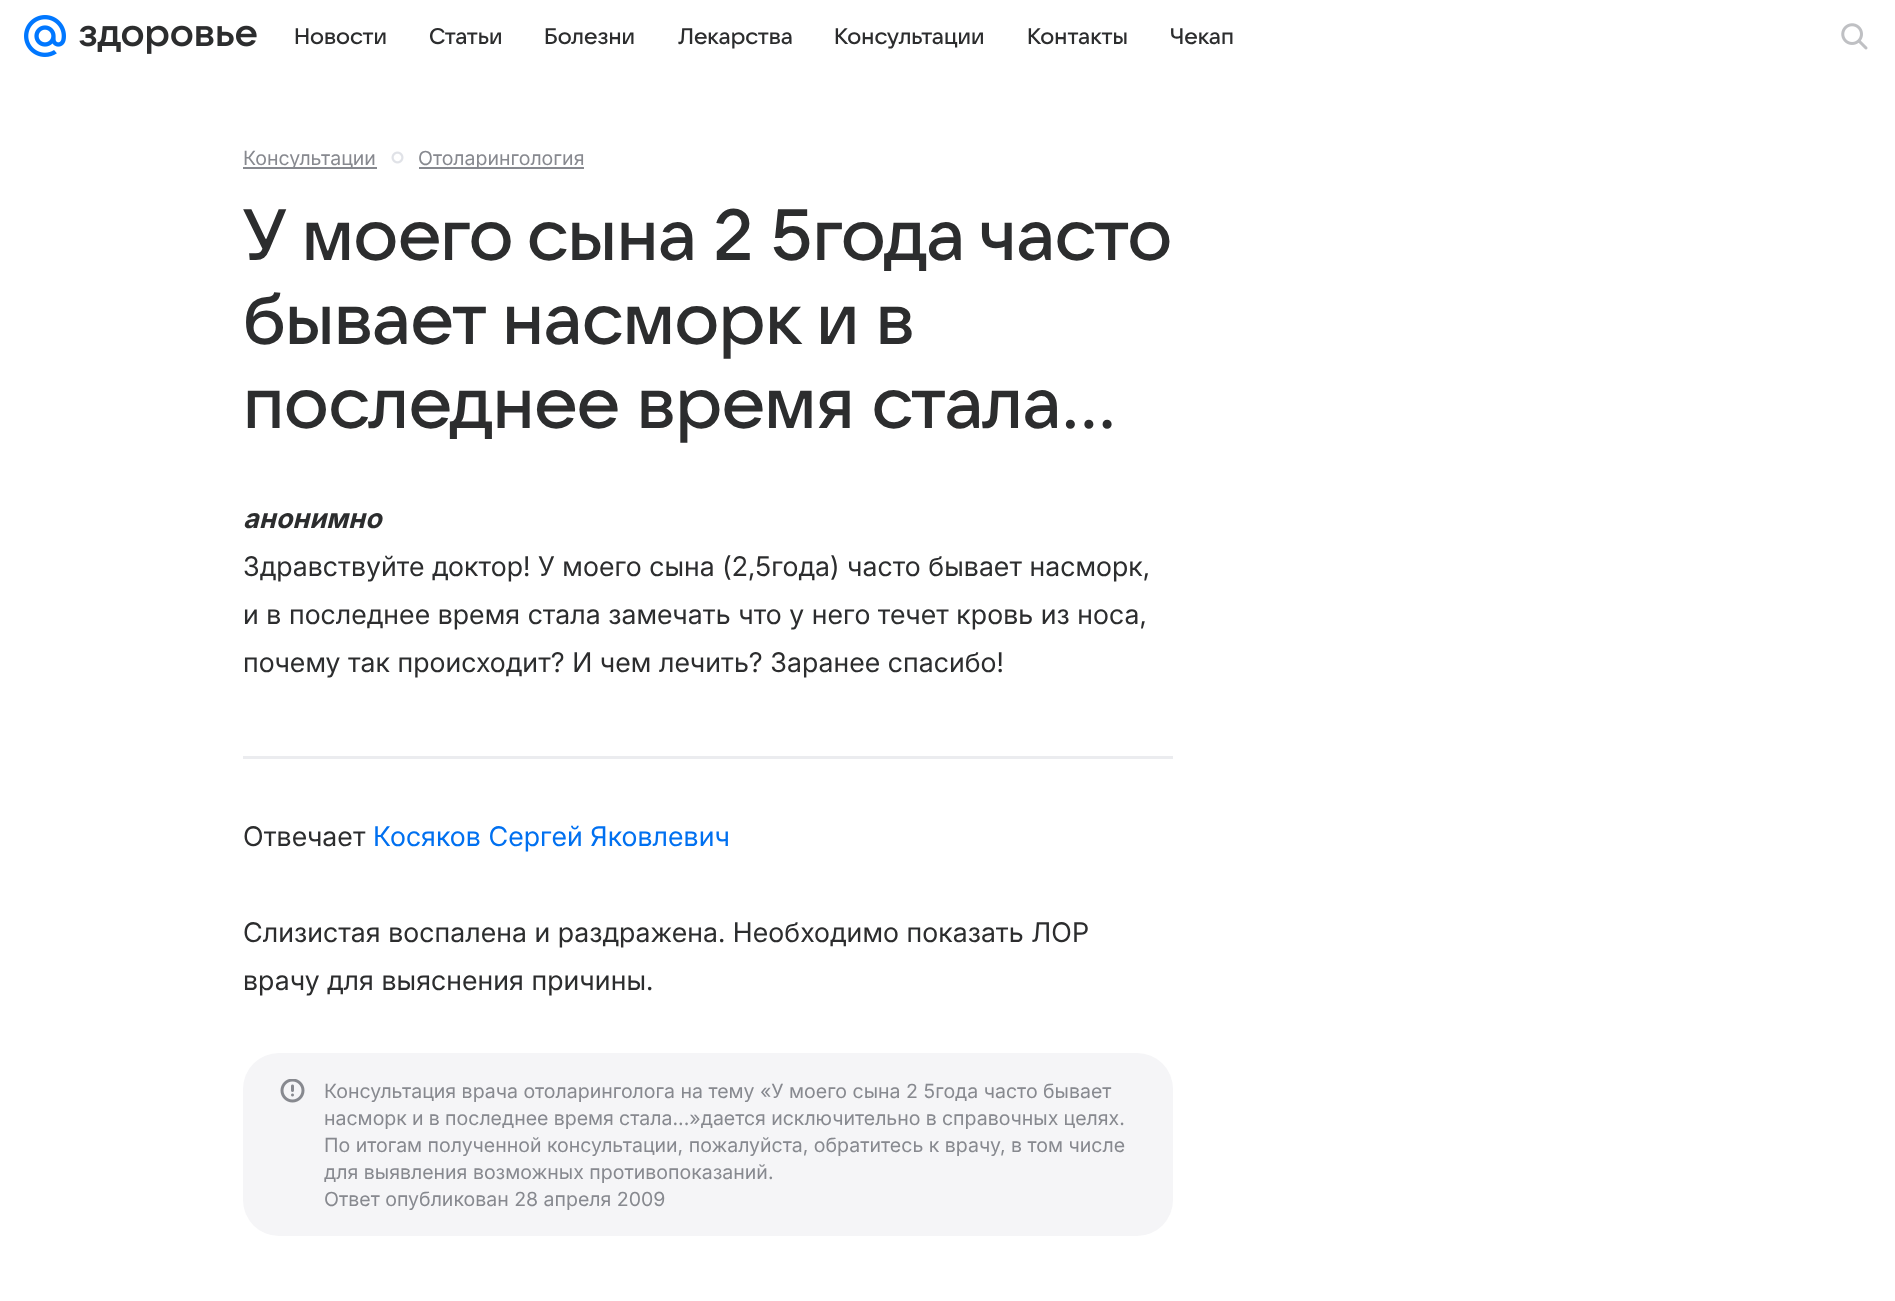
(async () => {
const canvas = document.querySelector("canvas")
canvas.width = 1895
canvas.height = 1301
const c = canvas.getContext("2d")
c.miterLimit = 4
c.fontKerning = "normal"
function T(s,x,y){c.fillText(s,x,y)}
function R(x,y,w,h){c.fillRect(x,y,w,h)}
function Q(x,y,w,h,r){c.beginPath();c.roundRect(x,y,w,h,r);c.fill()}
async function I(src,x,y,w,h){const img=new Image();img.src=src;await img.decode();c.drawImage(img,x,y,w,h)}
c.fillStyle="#fff"
R(0,0,1895,1301)
await I("1.png",24,15,42,42)
await I("2.png",79,25,178,29)
c.font="500 22.5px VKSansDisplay"
c.fillStyle="#2c2d2e"
T("Новости",294,44)
T("Статьи",429,44)
T("Болезни",544,44)
T("Лекарства",678,44)
T("Консультации",834,44)
T("Контакты",1027,44)
T("Чекап",1170,44)
await I("3.png",1841,23,27,27)
c.fillStyle="#87898f"
R(243,167,134,2)
c.font="19.5px 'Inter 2'"
T("Консультации",243,165)
await I("4.png",391,151,13,13)
R(419,167,165,2)
T("Отоларингология",418,165)
c.letterSpacing="-0.35px"
c.wordSpacing="-0.25px"
c.font="500 72px VKSansDisplay"
c.fillStyle="#2c2d2e"
T("У моего сына 2 5года часто",243,260)
c.wordSpacing="0px"
T("бывает насморк и в",243,344)
c.wordSpacing="2px"
T("последнее время стала...",243,428)
c.letterSpacing="0.08px"
c.wordSpacing="0px"
c.font="italic bold 27px Inter"
T("анонимно",243,528)
c.font="27px Inter"
T("Здравствуйте доктор! У моего сына (2,5года) часто бывает насморк,",243,576)
T("и в последнее время стала замечать что у него течет кровь из носа,",243,624)
T("почему так происходит? И чем лечить? Заранее спасибо!",243,672)
c.fillStyle="#ebecef"
R(243,756,930,3)
c.fillStyle="#2c2d2e"
T("Отвечает",243,846)
c.fillStyle="#0070f0"
T("Косяков Сергей Яковлевич",373,846)
c.fillStyle="#2c2d2e"
T("Слизистая воспалена и раздражена. Необходимо показать ЛОР",243,942)
T("врачу для выяснения причины.",243,990)
c.fillStyle="#f5f5f7"
Q(243,1053,930,183,36)
await I("5.png",280,1079,25,24)
c.letterSpacing="0px"
c.font="19.5px 'Inter 2'"
c.fillStyle="#87898f"
T("Консультация врача отоларинголога на тему «У моего сына 2 5года часто бывает",324,1098)
c.wordSpacing="-0.25px"
T("насморк и в последнее время стала...»дается исключительно в справочных целях.",324,1125)
c.wordSpacing="0px"
T("По итогам полученной консультации, пожалуйста, обратитесь к врачу, в том числе",324,1152)
T("для выявления возможных противопоказаний.",324,1179)
T("Ответ опубликован 28 апреля 2009",324,1206)
})()
